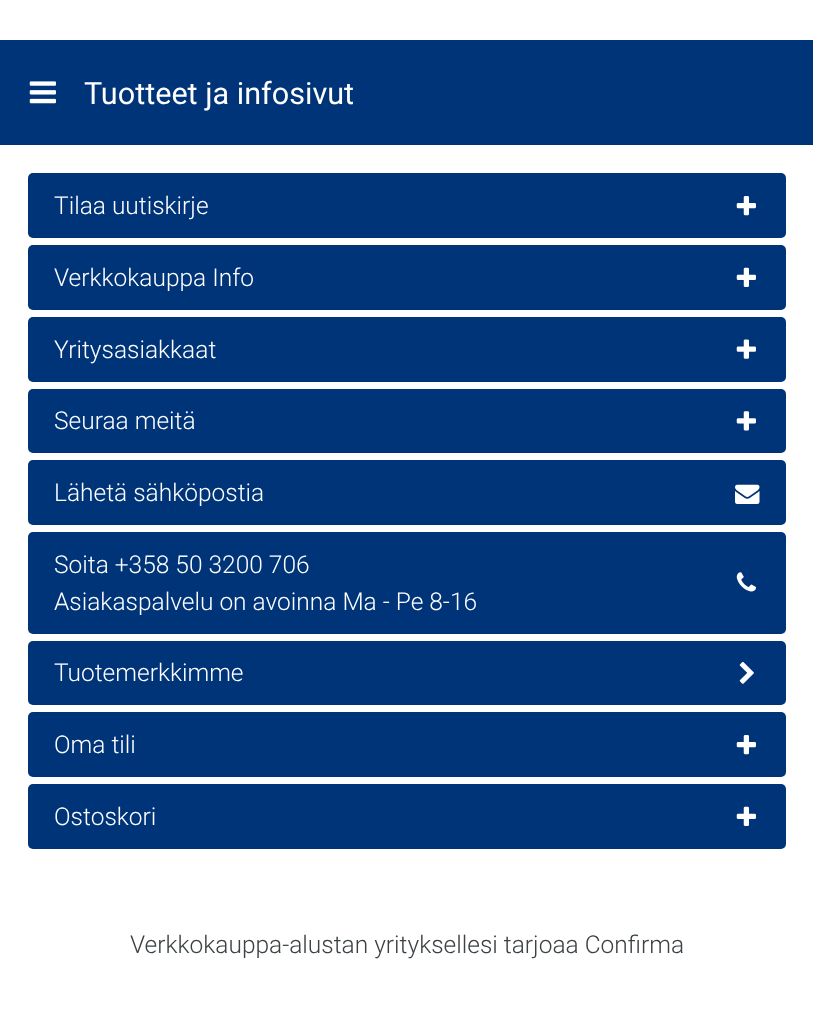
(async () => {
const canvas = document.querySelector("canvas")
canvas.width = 813
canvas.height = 1018
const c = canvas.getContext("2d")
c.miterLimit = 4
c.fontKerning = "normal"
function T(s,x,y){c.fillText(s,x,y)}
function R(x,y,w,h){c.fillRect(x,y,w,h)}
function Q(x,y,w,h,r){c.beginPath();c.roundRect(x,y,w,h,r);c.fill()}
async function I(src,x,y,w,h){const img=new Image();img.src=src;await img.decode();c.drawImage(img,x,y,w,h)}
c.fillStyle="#fff"
R(0,0,813,1018)
c.fillStyle="#003479"
R(0,40,813,105)
await I("1.png",29,81,27,23)
c.font="30.6px Roboto"
c.fillStyle="#fff"
T("Tuotteet ja infosivut",84,104)
c.fillStyle="#003479"
Q(28,173,758,65,5)
c.font="300 24.5px Roboto"
c.fillStyle="#fff"
T("Tilaa uutiskirje",54,214)
await I("2.png",736,196,20,20)
c.fillStyle="#003479"
Q(28,245,758,65,5)
c.fillStyle="#fff"
T("Verkkokauppa Info",54,286)
await I("3.png",736,267,20,20)
c.fillStyle="#003479"
Q(28,317,758,65,5)
c.fillStyle="#fff"
T("Yritysasiakkaat",54,358)
await I("4.png",736,339,20,20)
c.fillStyle="#003479"
Q(28,389,758,64,5)
c.fillStyle="#fff"
T("Seuraa meitä",54,429)
await I("5.png",736,411,20,20)
c.fillStyle="#003479"
Q(28,460,758,65,5)
c.fillStyle="#fff"
T("Lähetä sähköpostia",54,501)
await I("6.png",735,484,25,20)
c.fillStyle="#003479"
Q(28,532,758,102,5)
c.fillStyle="#fff"
T("Soita +358 50 3200 706",54,573)
T("Asiakaspalvelu on avoinna Ma - Pe 8-16",54,610)
await I("7.png",736,572,20,20)
c.fillStyle="#003479"
Q(28,641,758,64,5)
c.fillStyle="#fff"
T("Tuotemerkkimme",54,681)
await I("8.png",739,661,15,23)
c.fillStyle="#003479"
Q(28,712,758,65,5)
c.fillStyle="#fff"
T("Oma tili",54,753)
await I("2.png",736,735,20,20)
c.fillStyle="#003479"
Q(28,784,758,65,5)
c.fillStyle="#fff"
T("Ostoskori",54,825)
await I("3.png",736,806,20,20)
c.fillStyle="#3b4144"
T("Verkkokauppa-alustan yrityksellesi tarjoaa Confirma",130,953)
})()
